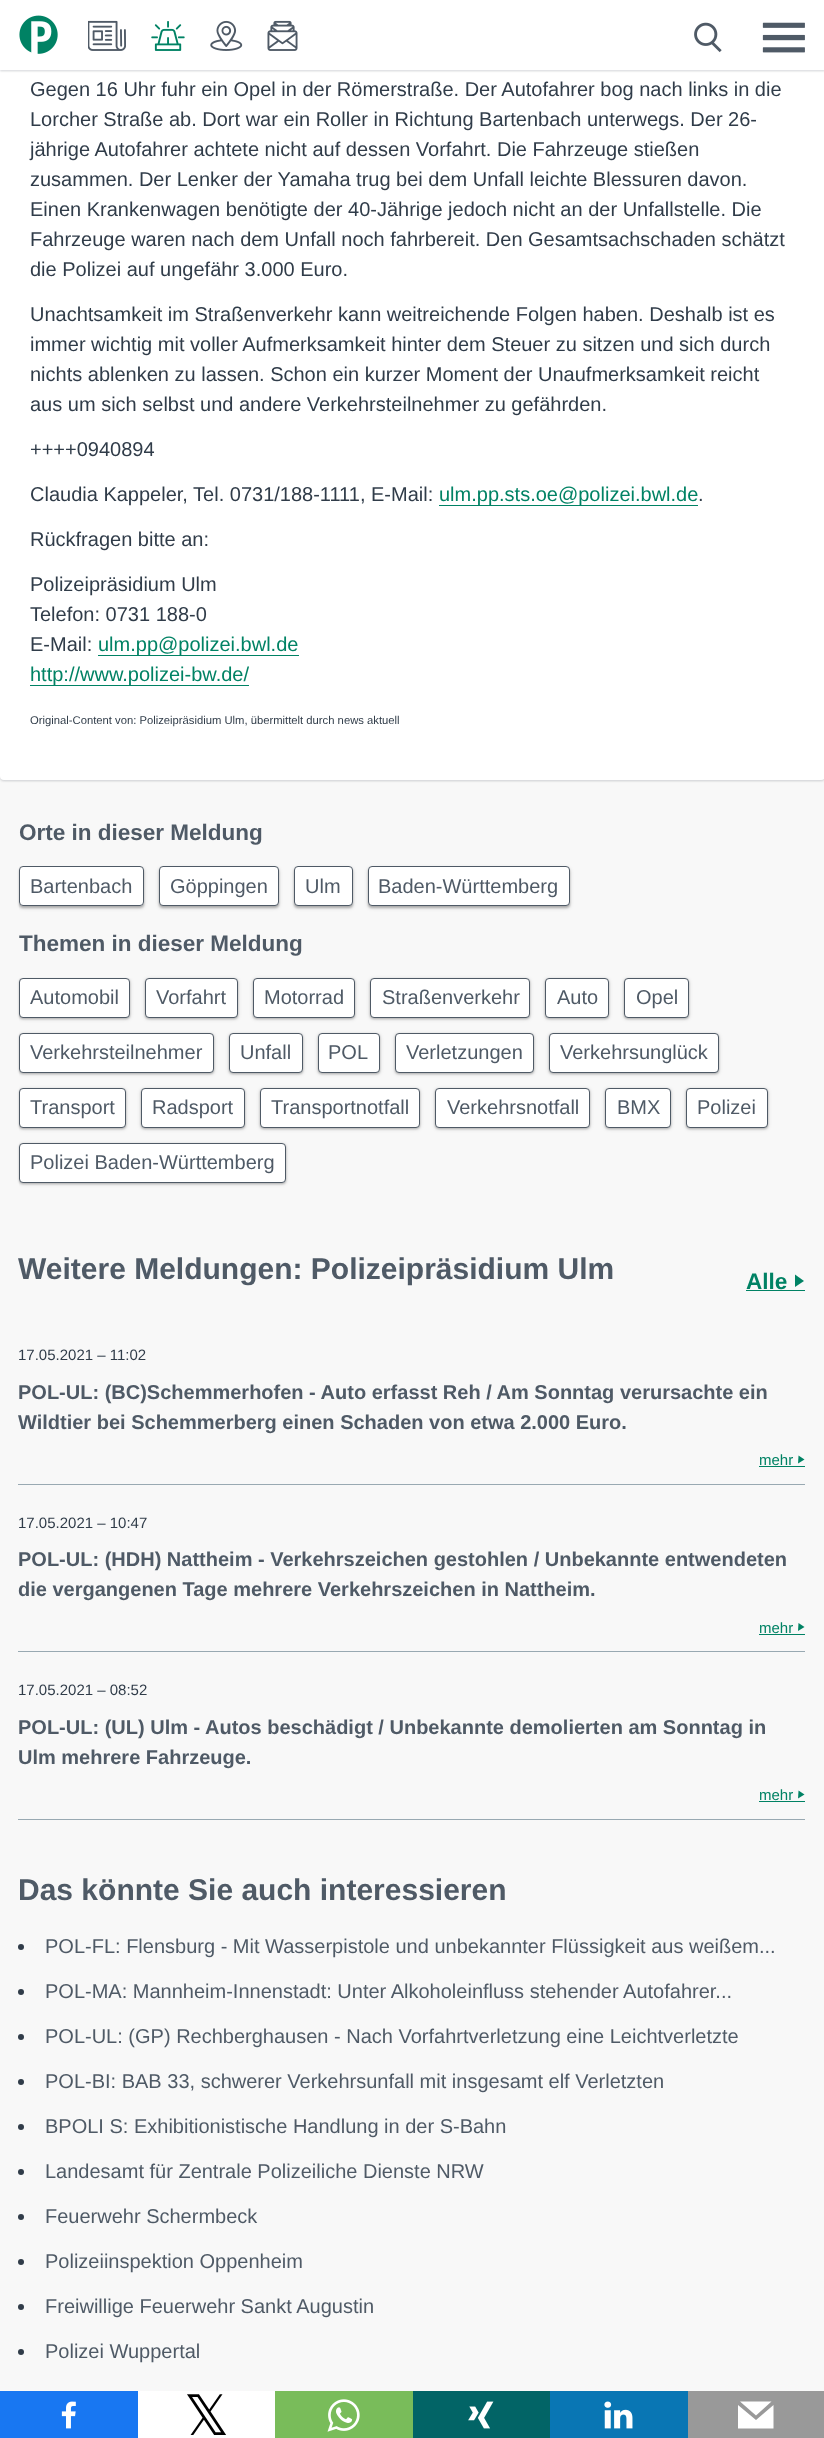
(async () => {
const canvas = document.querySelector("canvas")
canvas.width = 824
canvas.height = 2438
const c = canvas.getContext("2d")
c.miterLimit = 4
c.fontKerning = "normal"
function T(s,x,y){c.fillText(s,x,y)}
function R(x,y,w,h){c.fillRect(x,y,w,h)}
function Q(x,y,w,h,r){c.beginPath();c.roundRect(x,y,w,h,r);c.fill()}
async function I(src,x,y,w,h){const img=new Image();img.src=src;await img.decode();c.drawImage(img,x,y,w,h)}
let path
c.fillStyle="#f8f8f8"
R(0,0,824,2438)
c.fillStyle="#4f5a6629"
c.filter="blur(1px)"
c.beginPath()
c.roundRect(0,-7,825,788,4)
c.fill()
c.filter="none"
c.fillStyle="#4f5a661a"
c.filter="blur(1px)"
c.beginPath()
c.roundRect(0,-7,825,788,4)
c.fill()
c.filter="none"
c.fillStyle="#fff"
Q(0,-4,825,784,4)
c.fillStyle="#4f5a6629"
c.filter="blur(1px)"
c.beginPath()
c.rect(0,1,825,70)
c.fill()
c.filter="none"
c.fillStyle="#4f5a661a"
c.filter="blur(1px)"
c.beginPath()
c.rect(0,1,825,70)
c.fill()
c.filter="none"
c.fillStyle="#fff"
R(0,0,824,70)
await I("1.png",19,15,39,39)
await I("2.png",88,20,38,31)
await I("3.png",151,21,34,30)
await I("4.png",210,20,33,31)
await I("5.png",267,20,31,31)
await I("6.png",694,22,28,31)
await I("7.png",762,22,43,31)
c.font="20px Liberation Sans"
c.fillStyle="#303c49"
T("Gegen 16 Uhr fuhr ein Opel in der Römerstraße. Der Autofahrer bog nach links in die",30,96)
T("Lorcher Straße ab. Dort war ein Roller in Richtung Bartenbach unterwegs. Der 26-",30,126)
T("jährige Autofahrer achtete nicht auf dessen Vorfahrt. Die Fahrzeuge stießen",30,156)
T("zusammen. Der Lenker der Yamaha trug bei dem Unfall leichte Blessuren davon.",30,186)
T("Einen Krankenwagen benötigte der 40-Jährige jedoch nicht an der Unfallstelle. Die",30,216)
T("Fahrzeuge waren nach dem Unfall noch fahrbereit. Den Gesamtsachschaden schätzt",30,246)
T("die Polizei auf ungefähr 3.000 Euro.",30,276)
T("Unachtsamkeit im Straßenverkehr kann weitreichende Folgen haben. Deshalb ist es",30,321)
T("immer wichtig mit voller Aufmerksamkeit hinter dem Steuer zu sitzen und sich durch",30,351)
T("nichts ablenken zu lassen. Schon ein kurzer Moment der Unaufmerksamkeit reicht",30,381)
T("aus um sich selbst und andere Verkehrsteilnehmer zu gefährden.",30,411)
T("++++0940894",30,456)
T("Claudia Kappeler, Tel. 0731/188-1111, E-Mail:",30,501)
c.fillStyle="#008264"
R(439,505,259,1)
T("ulm.pp.sts.oe@polizei.bwl.de",439,501)
c.fillStyle="#303c49"
T(".",698,501)
T("Rückfragen bitte an:",30,546)
T("Polizeipräsidium Ulm",30,591)
T("Telefon: 0731 188-0",30,621)
T("E-Mail:",30,651)
c.fillStyle="#008264"
R(98,655,201,1)
T("ulm.pp@polizei.bwl.de",98,651)
R(30,685,219,1)
T("http://www.polizei-bw.de/",30,681)
c.font="11.25px Liberation Sans"
c.fillStyle="#303c49"
T("Original-Content von: Polizeipräsidium Ulm, übermittelt durch news aktuell",30,724)
c.fillStyle="#fff"
R(138,2391,137,47)
c.fillStyle="#1877f2"
R(0,2391,138,47)
await I("8.png",61,2401,15,28)
c.font="56px DejaVu Sans"
c.fillStyle="#000"
T("𝕏",184,2435)
c.fillStyle="#79bc5a"
R(275,2391,138,47)
await I("9.png",327,2399,33,33)
c.fillStyle="#026466"
R(413,2391,137,47)
await I("10.png",468,2401,26,28)
c.fillStyle="#0976b4"
R(550,2391,138,47)
await I("11.png",604,2401,29,28)
c.fillStyle="#999"
R(688,2391,136,47)
c.fillStyle="#fff"
path = new Path2D("M773.5 2428.5h-35.5v-23.5l18 15l17.5-15zm-17.5-13l-16-14h31.5z")
c.fill(path)
c.font="bold 22.5px Liberation Sans"
c.fillStyle="#4f5a66"
T("Orte in dieser Meldung",19,840)
c.save()
path = new Path2D("M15 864h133v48h-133zm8 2h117c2 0 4 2 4 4v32c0 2-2 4-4 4h-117c-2 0-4-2-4-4v-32c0-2 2-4 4-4z")
c.clip(path,"evenodd")
c.fillStyle="#0000003d"
c.filter="blur(1px)"
c.beginPath()
c.roundRect(19,868,125,40,4)
c.fill()
c.filter="none"
c.restore()
c.save()
c.beginPath()
c.rect(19,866,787,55)
c.clip()
c.fillStyle="#0000001f"
c.filter="blur(2px)"
c.beginPath()
c.roundRect(19,868,125,40,4)
c.fill()
c.filter="none"
c.restore()
c.fillStyle="#fff"
c.beginPath()
c.roundRect(19.5,866.5,124,39,3.5)
c.fill()
c.strokeStyle="#4f5a66"
c.stroke()
c.font="20px Liberation Sans"
c.fillStyle="#4f5a66"
T("Bartenbach",30,893)
c.fillStyle="#0000003d"
c.filter="blur(1px)"
c.beginPath()
c.roundRect(159,868,120,40,4)
c.fill()
c.filter="none"
c.fillStyle="#0000001f"
c.filter="blur(2px)"
c.beginPath()
c.roundRect(159,868,120,40,4)
c.fill()
c.filter="none"
c.fillStyle="#fff"
c.beginPath()
c.roundRect(159.5,866.5,119,39,3.5)
c.fill()
c.stroke()
c.fillStyle="#4f5a66"
T("Göppingen",170,893)
c.fillStyle="#0000003d"
c.filter="blur(1px)"
c.beginPath()
c.roundRect(294,868,59,40,4)
c.fill()
c.filter="none"
c.fillStyle="#0000001f"
c.filter="blur(2px)"
c.beginPath()
c.roundRect(294,868,59,40,4)
c.fill()
c.filter="none"
c.fillStyle="#fff"
c.beginPath()
c.roundRect(294.5,866.5,58,39,3.5)
c.fill()
c.stroke()
c.fillStyle="#4f5a66"
T("Ulm",305,893)
c.fillStyle="#0000003d"
c.filter="blur(1px)"
c.beginPath()
c.roundRect(368,868,202,40,4)
c.fill()
c.filter="none"
c.fillStyle="#0000001f"
c.filter="blur(2px)"
c.beginPath()
c.roundRect(368,868,202,40,4)
c.fill()
c.filter="none"
c.fillStyle="#fff"
c.beginPath()
c.roundRect(368.5,866.5,201,39,3.5)
c.fill()
c.stroke()
c.fillStyle="#4f5a66"
T("Baden-Württemberg",378,893)
c.font="bold 22.5px Liberation Sans"
T("Themen in dieser Meldung",19,951)
c.fillStyle="#0000003d"
c.filter="blur(1px)"
c.beginPath()
c.roundRect(19,979,111,40,4)
c.fill()
c.filter="none"
c.save()
c.beginPath()
c.rect(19,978,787,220)
c.clip()
c.fillStyle="#0000001f"
c.filter="blur(2px)"
c.beginPath()
c.roundRect(19,979,111,40,4)
c.fill()
c.filter="none"
c.restore()
c.fillStyle="#fff"
c.beginPath()
c.roundRect(19.5,978.5,110,39,3.5)
c.fill()
c.stroke()
c.font="20px Liberation Sans"
c.fillStyle="#4f5a66"
T("Automobil",30,1004)
c.fillStyle="#0000003d"
c.filter="blur(1px)"
c.beginPath()
c.roundRect(145,979,93,40,4)
c.fill()
c.filter="none"
c.fillStyle="#0000001f"
c.filter="blur(2px)"
c.beginPath()
c.roundRect(145,979,93,40,4)
c.fill()
c.filter="none"
c.fillStyle="#fff"
c.beginPath()
c.roundRect(145.5,978.5,92,39,3.5)
c.fill()
c.stroke()
c.fillStyle="#4f5a66"
T("Vorfahrt",156,1004)
c.fillStyle="#0000003d"
c.filter="blur(1px)"
c.beginPath()
c.roundRect(253,979,102,40,4)
c.fill()
c.filter="none"
c.fillStyle="#0000001f"
c.filter="blur(2px)"
c.beginPath()
c.roundRect(253,979,102,40,4)
c.fill()
c.filter="none"
c.fillStyle="#fff"
c.beginPath()
c.roundRect(253.5,978.5,101,39,3.5)
c.fill()
c.stroke()
c.fillStyle="#4f5a66"
T("Motorrad",264,1004)
c.fillStyle="#0000003d"
c.filter="blur(1px)"
c.beginPath()
c.roundRect(370,979,160,40,4)
c.fill()
c.filter="none"
c.fillStyle="#0000001f"
c.filter="blur(2px)"
c.beginPath()
c.roundRect(370,979,160,40,4)
c.fill()
c.filter="none"
c.fillStyle="#fff"
c.beginPath()
c.roundRect(370.5,978.5,159,39,3.5)
c.fill()
c.stroke()
c.fillStyle="#4f5a66"
T("Straßenverkehr",382,1004)
c.fillStyle="#0000003d"
c.filter="blur(1px)"
c.beginPath()
c.roundRect(545,979,64,40,4)
c.fill()
c.filter="none"
c.fillStyle="#0000001f"
c.filter="blur(2px)"
c.beginPath()
c.roundRect(545,979,64,40,4)
c.fill()
c.filter="none"
c.fillStyle="#fff"
c.beginPath()
c.roundRect(545.5,978.5,63,39,3.5)
c.fill()
c.stroke()
c.fillStyle="#4f5a66"
T("Auto",557,1004)
c.fillStyle="#0000003d"
c.filter="blur(1px)"
c.beginPath()
c.roundRect(624,979,65,40,4)
c.fill()
c.filter="none"
c.fillStyle="#0000001f"
c.filter="blur(2px)"
c.beginPath()
c.roundRect(624,979,65,40,4)
c.fill()
c.filter="none"
c.fillStyle="#fff"
c.beginPath()
c.roundRect(624.5,978.5,64,39,3.5)
c.fill()
c.stroke()
c.fillStyle="#4f5a66"
T("Opel",636,1004)
c.fillStyle="#0000003d"
c.filter="blur(1px)"
c.beginPath()
c.roundRect(19,1034,195,40,4)
c.fill()
c.filter="none"
c.save()
c.beginPath()
c.rect(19,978,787,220)
c.clip()
c.fillStyle="#0000001f"
c.filter="blur(2px)"
c.beginPath()
c.roundRect(19,1034,195,40,4)
c.fill()
c.filter="none"
c.restore()
c.fillStyle="#fff"
c.beginPath()
c.roundRect(19.5,1033.5,194,39,3.5)
c.fill()
c.stroke()
c.fillStyle="#4f5a66"
T("Verkehrsteilnehmer",30,1059)
c.fillStyle="#0000003d"
c.filter="blur(1px)"
c.beginPath()
c.roundRect(229,1034,74,40,4)
c.fill()
c.filter="none"
c.fillStyle="#0000001f"
c.filter="blur(2px)"
c.beginPath()
c.roundRect(229,1034,74,40,4)
c.fill()
c.filter="none"
c.fillStyle="#fff"
c.beginPath()
c.roundRect(229.5,1033.5,73,39,3.5)
c.fill()
c.stroke()
c.fillStyle="#4f5a66"
T("Unfall",240,1059)
c.fillStyle="#0000003d"
c.filter="blur(1px)"
c.beginPath()
c.roundRect(318,1034,62,40,4)
c.fill()
c.filter="none"
c.fillStyle="#0000001f"
c.filter="blur(2px)"
c.beginPath()
c.roundRect(318,1034,62,40,4)
c.fill()
c.filter="none"
c.fillStyle="#fff"
c.beginPath()
c.roundRect(318.5,1033.5,61,39,3.5)
c.fill()
c.stroke()
c.fillStyle="#4f5a66"
T("POL",328,1059)
c.fillStyle="#0000003d"
c.filter="blur(1px)"
c.beginPath()
c.roundRect(395,1034,139,40,4)
c.fill()
c.filter="none"
c.fillStyle="#0000001f"
c.filter="blur(2px)"
c.beginPath()
c.roundRect(395,1034,139,40,4)
c.fill()
c.filter="none"
c.fillStyle="#fff"
c.beginPath()
c.roundRect(395.5,1033.5,138,39,3.5)
c.fill()
c.stroke()
c.fillStyle="#4f5a66"
T("Verletzungen",406,1059)
c.fillStyle="#0000003d"
c.filter="blur(1px)"
c.beginPath()
c.roundRect(549,1034,170,40,4)
c.fill()
c.filter="none"
c.fillStyle="#0000001f"
c.filter="blur(2px)"
c.beginPath()
c.roundRect(549,1034,170,40,4)
c.fill()
c.filter="none"
c.fillStyle="#fff"
c.beginPath()
c.roundRect(549.5,1033.5,169,39,3.5)
c.fill()
c.stroke()
c.fillStyle="#4f5a66"
T("Verkehrsunglück",560,1059)
c.fillStyle="#0000003d"
c.filter="blur(1px)"
c.beginPath()
c.roundRect(19,1089,107,40,4)
c.fill()
c.filter="none"
c.save()
c.beginPath()
c.rect(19,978,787,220)
c.clip()
c.fillStyle="#0000001f"
c.filter="blur(2px)"
c.beginPath()
c.roundRect(19,1089,107,40,4)
c.fill()
c.filter="none"
c.restore()
c.fillStyle="#fff"
c.beginPath()
c.roundRect(19.5,1088.5,106,39,3.5)
c.fill()
c.stroke()
c.fillStyle="#4f5a66"
T("Transport",30,1114)
c.fillStyle="#0000003d"
c.filter="blur(1px)"
c.beginPath()
c.roundRect(141,1089,104,40,4)
c.fill()
c.filter="none"
c.fillStyle="#0000001f"
c.filter="blur(2px)"
c.beginPath()
c.roundRect(141,1089,104,40,4)
c.fill()
c.filter="none"
c.fillStyle="#fff"
c.beginPath()
c.roundRect(141.5,1088.5,103,39,3.5)
c.fill()
c.stroke()
c.fillStyle="#4f5a66"
T("Radsport",152,1114)
c.fillStyle="#0000003d"
c.filter="blur(1px)"
c.beginPath()
c.roundRect(260,1089,160,40,4)
c.fill()
c.filter="none"
c.fillStyle="#0000001f"
c.filter="blur(2px)"
c.beginPath()
c.roundRect(260,1089,160,40,4)
c.fill()
c.filter="none"
c.fillStyle="#fff"
c.beginPath()
c.roundRect(260.5,1088.5,159,39,3.5)
c.fill()
c.stroke()
c.fillStyle="#4f5a66"
T("Transportnotfall",271,1114)
c.fillStyle="#0000003d"
c.filter="blur(1px)"
c.beginPath()
c.roundRect(435,1089,155,40,4)
c.fill()
c.filter="none"
c.fillStyle="#0000001f"
c.filter="blur(2px)"
c.beginPath()
c.roundRect(435,1089,155,40,4)
c.fill()
c.filter="none"
c.fillStyle="#fff"
c.beginPath()
c.roundRect(435.5,1088.5,154,39,3.5)
c.fill()
c.stroke()
c.fillStyle="#4f5a66"
T("Verkehrsnotfall",447,1114)
c.fillStyle="#0000003d"
c.filter="blur(1px)"
c.beginPath()
c.roundRect(605,1089,66,40,4)
c.fill()
c.filter="none"
c.fillStyle="#0000001f"
c.filter="blur(2px)"
c.beginPath()
c.roundRect(605,1089,66,40,4)
c.fill()
c.filter="none"
c.fillStyle="#fff"
c.beginPath()
c.roundRect(605.5,1088.5,65,39,3.5)
c.fill()
c.stroke()
c.fillStyle="#4f5a66"
T("BMX",617,1114)
c.fillStyle="#0000003d"
c.filter="blur(1px)"
c.beginPath()
c.roundRect(686,1089,82,40,4)
c.fill()
c.filter="none"
c.fillStyle="#0000001f"
c.filter="blur(2px)"
c.beginPath()
c.roundRect(686,1089,82,40,4)
c.fill()
c.filter="none"
c.fillStyle="#fff"
c.beginPath()
c.roundRect(686.5,1088.5,81,39,3.5)
c.fill()
c.stroke()
c.fillStyle="#4f5a66"
T("Polizei",697,1114)
c.fillStyle="#0000003d"
c.filter="blur(1px)"
c.beginPath()
c.roundRect(19,1144,267,40,4)
c.fill()
c.filter="none"
c.save()
c.beginPath()
c.rect(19,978,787,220)
c.clip()
c.fillStyle="#0000001f"
c.filter="blur(2px)"
c.beginPath()
c.roundRect(19,1144,267,40,4)
c.fill()
c.filter="none"
c.restore()
c.fillStyle="#fff"
c.beginPath()
c.roundRect(19.5,1143.5,266,39,3.5)
c.fill()
c.stroke()
c.fillStyle="#4f5a66"
T("Polizei Baden-Württemberg",30,1169)
c.font="bold 30px Liberation Sans"
T("Weitere Meldungen: Polizeipräsidium Ulm",18,1279)
c.font="bold 22.5px Liberation Sans"
c.fillStyle="#008264"
T("Alle",746,1289)
R(746,1290,59,1)
path = new Path2D("M795 1287v-12.5l9 6.5z")
c.fill(path)
c.font="15px Liberation Sans"
c.fillStyle="#303c49"
T("17.05.2021 – 11:02",18,1360)
c.font="bold 20px Liberation Sans"
c.fillStyle="#4f5a66"
T("POL-UL: (BC)Schemmerhofen - Auto erfasst Reh / Am Sonntag verursachte ein",18,1399)
T("Wildtier bei Schemmerberg einen Schaden von etwa 2.000 Euro.",18,1429)
c.font="15px Liberation Sans"
c.fillStyle="#008264"
T("mehr",759,1465)
R(759,1466,46,1)
path = new Path2D("M798 1463.5l.5-8l6 4z")
c.fill(path)
c.fillStyle="#99a9b2"
R(18,1484,787,1)
c.fillStyle="#303c49"
T("17.05.2021 – 10:47",18,1528)
c.font="bold 20px Liberation Sans"
c.fillStyle="#4f5a66"
T("POL-UL: (HDH) Nattheim - Verkehrszeichen gestohlen / Unbekannte entwendeten",18,1566)
T("die vergangenen Tage mehrere Verkehrszeichen in Nattheim.",18,1596)
c.font="15px Liberation Sans"
c.fillStyle="#008264"
T("mehr",759,1633)
R(759,1634,46,1)
path = new Path2D("M798 1631l.5-8l6 4z")
c.fill(path)
c.fillStyle="#99a9b2"
R(18,1651,787,1)
c.fillStyle="#303c49"
T("17.05.2021 – 08:52",18,1695)
c.font="bold 20px Liberation Sans"
c.fillStyle="#4f5a66"
T("POL-UL: (UL) Ulm - Autos beschädigt / Unbekannte demolierten am Sonntag in",18,1734)
T("Ulm mehrere Fahrzeuge.",18,1764)
c.font="15px Liberation Sans"
c.fillStyle="#008264"
T("mehr",759,1800)
R(759,1801,46,1)
path = new Path2D("M798 1798.5l.5-8l6 4z")
c.fill(path)
c.fillStyle="#99a9b2"
R(18,1819,787,1)
c.font="bold 30px Liberation Sans"
c.fillStyle="#4f5a66"
T("Das könnte Sie auch interessieren",18,1900)
c.fillStyle="#303c49"
c.beginPath()
c.arc(21,1947,3,0,7)
c.fill()
c.font="20px Liberation Sans"
c.fillStyle="#4f5a66"
T("POL-FL: Flensburg - Mit Wasserpistole und unbekannter Flüssigkeit aus weißem...",45,1953)
c.fillStyle="#303c49"
c.beginPath()
c.arc(21,1992,3,0,7)
c.fill()
c.fillStyle="#4f5a66"
T("POL-MA: Mannheim-Innenstadt: Unter Alkoholeinfluss stehender Autofahrer...",45,1998)
c.fillStyle="#303c49"
c.beginPath()
c.arc(21,2037,3,0,7)
c.fill()
c.fillStyle="#4f5a66"
T("POL-UL: (GP) Rechberghausen - Nach Vorfahrtverletzung eine Leichtverletzte",45,2043)
c.fillStyle="#303c49"
c.beginPath()
c.arc(21,2082,3,0,7)
c.fill()
c.fillStyle="#4f5a66"
T("POL-BI: BAB 33, schwerer Verkehrsunfall mit insgesamt elf Verletzten",45,2088)
c.fillStyle="#303c49"
c.beginPath()
c.arc(21,2127,3,0,7)
c.fill()
c.fillStyle="#4f5a66"
T("BPOLI S: Exhibitionistische Handlung in der S-Bahn",45,2133)
c.fillStyle="#303c49"
c.beginPath()
c.arc(21,2172,3,0,7)
c.fill()
c.fillStyle="#4f5a66"
T("Landesamt für Zentrale Polizeiliche Dienste NRW",45,2178)
c.fillStyle="#303c49"
c.beginPath()
c.arc(21,2217,3,0,7)
c.fill()
c.fillStyle="#4f5a66"
T("Feuerwehr Schermbeck",45,2223)
c.fillStyle="#303c49"
c.beginPath()
c.arc(21,2262,3,0,7)
c.fill()
c.fillStyle="#4f5a66"
T("Polizeiinspektion Oppenheim",45,2268)
c.fillStyle="#303c49"
c.beginPath()
c.arc(21,2307,3,0,7)
c.fill()
c.fillStyle="#4f5a66"
T("Freiwillige Feuerwehr Sankt Augustin",45,2313)
c.fillStyle="#303c49"
c.beginPath()
c.arc(21,2352,3,0,7)
c.fill()
c.fillStyle="#4f5a66"
T("Polizei Wuppertal",45,2358)
})()
